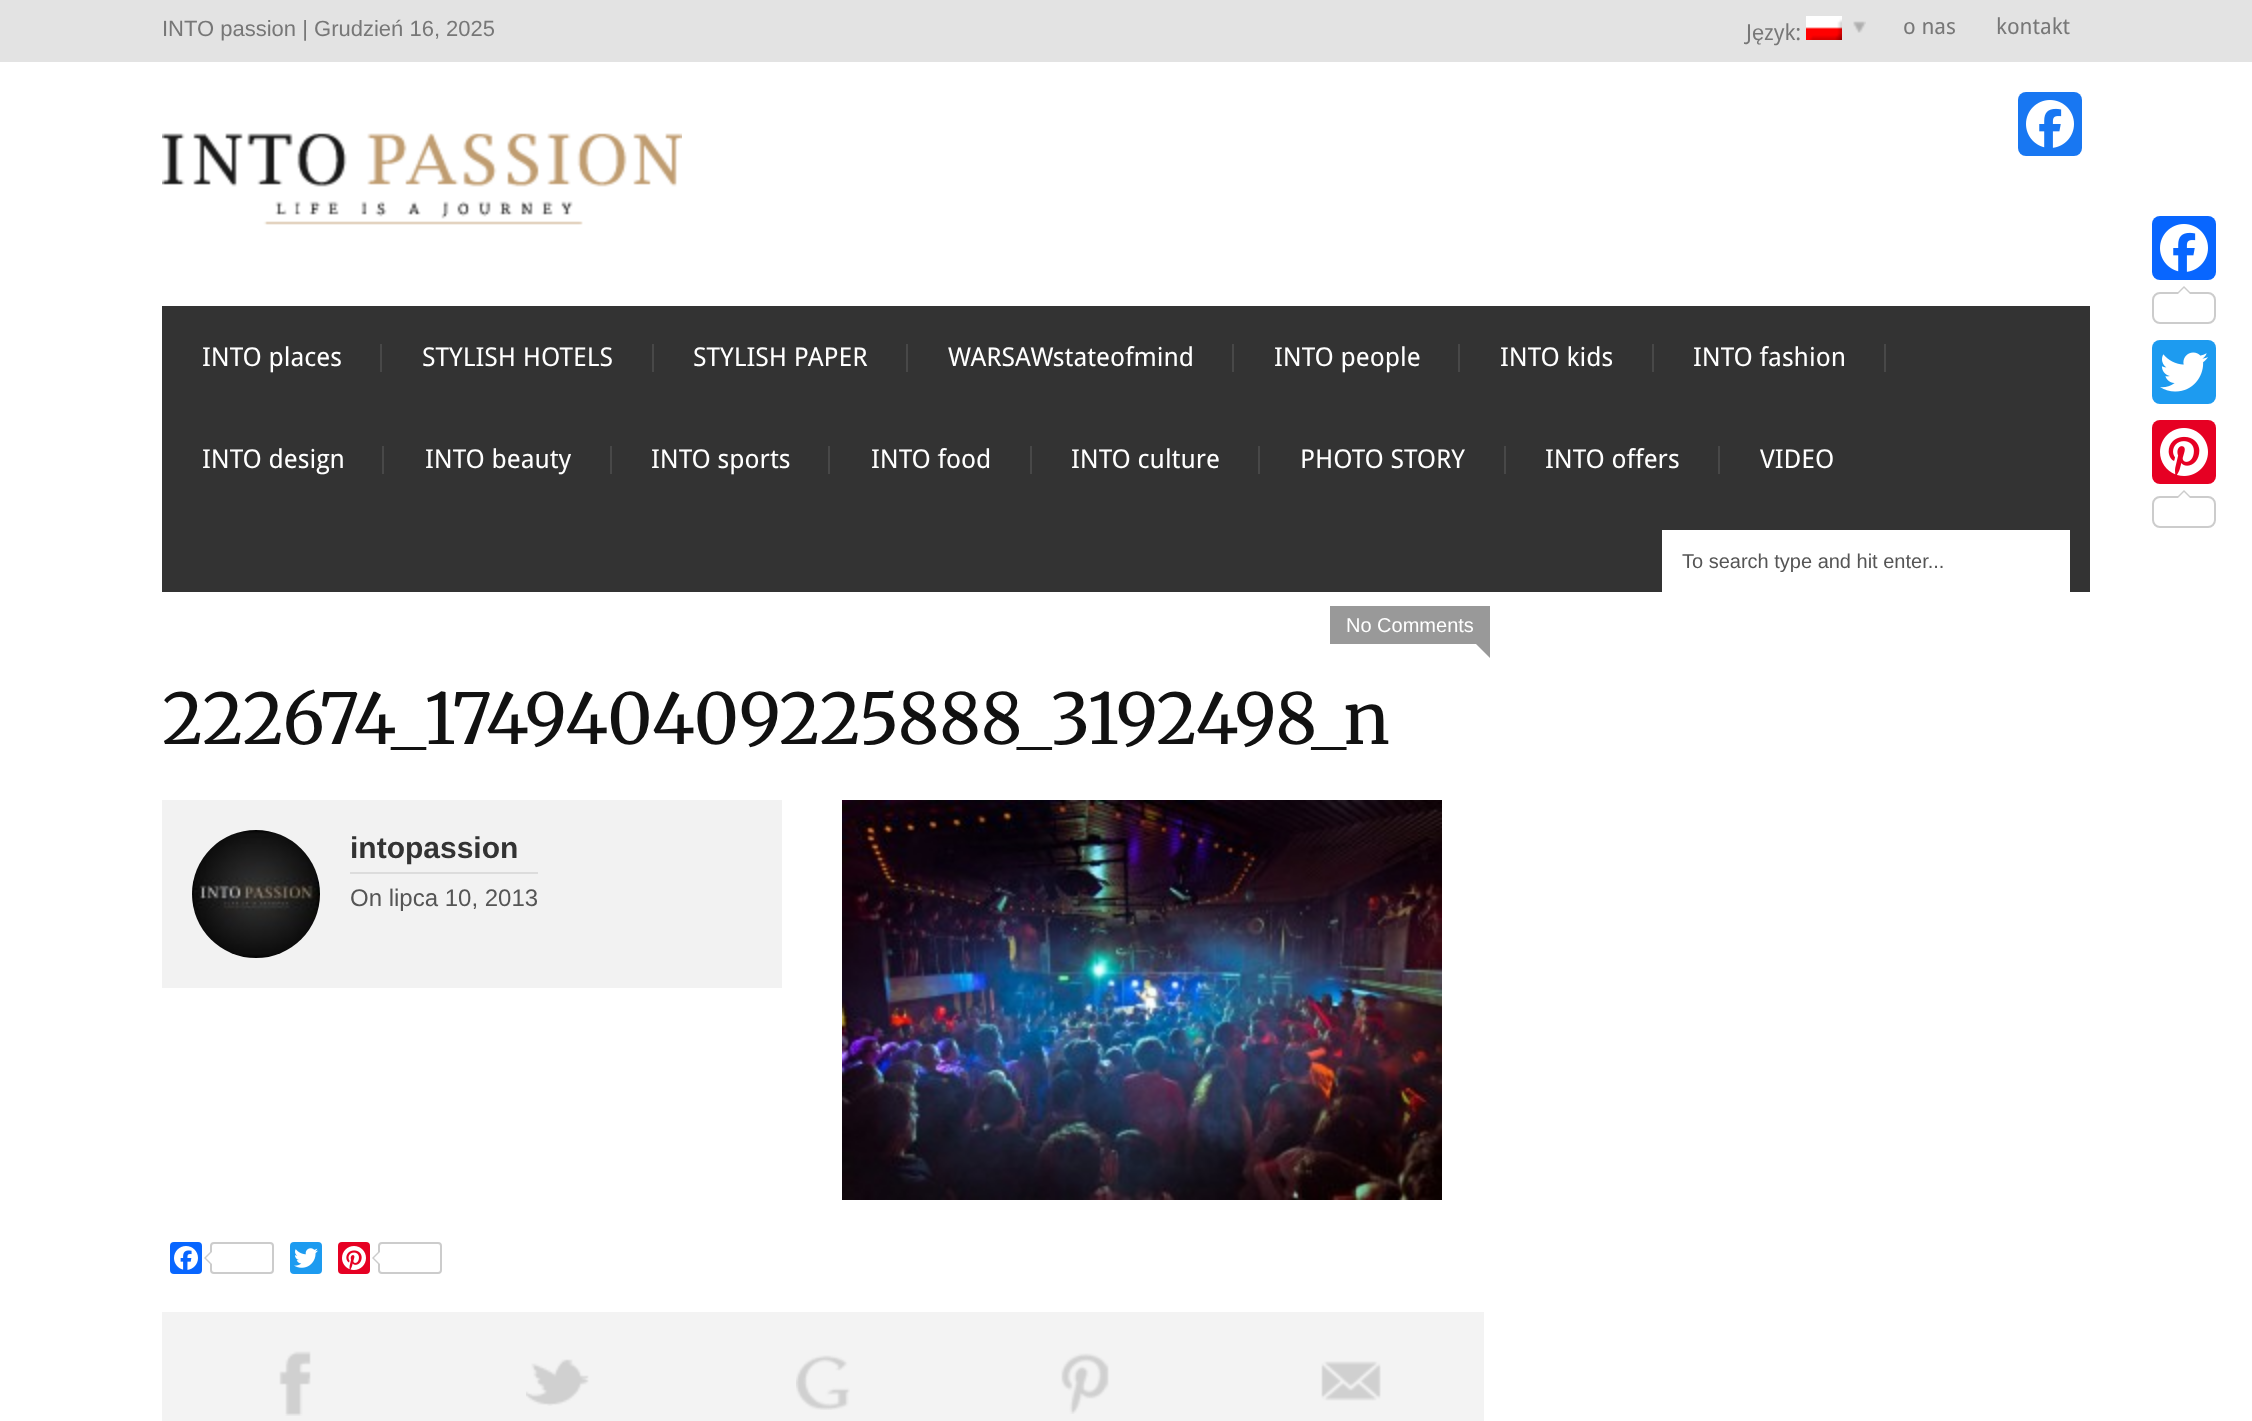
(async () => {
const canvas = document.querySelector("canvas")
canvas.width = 2252
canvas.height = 1421
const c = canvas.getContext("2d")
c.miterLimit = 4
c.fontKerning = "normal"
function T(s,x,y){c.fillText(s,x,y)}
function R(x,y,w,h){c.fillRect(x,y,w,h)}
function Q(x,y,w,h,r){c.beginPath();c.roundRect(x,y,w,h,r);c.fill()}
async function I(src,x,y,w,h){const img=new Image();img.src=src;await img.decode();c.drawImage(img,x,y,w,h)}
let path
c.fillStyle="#fff"
R(0,0,2252,1421)
c.fillStyle="#e3e3e3"
R(0,0,2252,62)
c.font="22px Liberation Sans"
c.fillStyle="#777"
T("INTO passion | Grudzień 16, 2025",162,36)
c.font="22px Droid Sans"
T("J",1746,40)
c.font="22px Liberation Sans"
T("ę",1752,40)
c.font="22px Droid Sans"
T("zyk:",1764,40)
await I("1.png",1806,16,36,24)
await I("2.png",1853,21,13,12)
T("o nas",1903,34)
T("kontakt",1996,34)
c.fillStyle="#1877f2"
Q(2018,92,64,64,8)
await I("3.png",2026,100,48,48)
await I("4.png",162,133,520,92)
c.fillStyle="#333"
R(162,306,1928,286)
c.fillStyle="#484848"
R(380,344,2,28)
c.font="26px Droid Sans"
c.fillStyle="#fff"
T("INTO places",202,366)
c.fillStyle="#484848"
R(652,344,2,28)
c.fillStyle="#fff"
T("STYLISH HOTELS",422,366)
c.fillStyle="#484848"
R(906,344,2,28)
c.fillStyle="#fff"
T("STYLISH PAPER",693,366)
c.fillStyle="#484848"
R(1232,344,2,28)
c.fillStyle="#fff"
T("WARSAWstateofmind",948,366)
c.fillStyle="#484848"
R(1458,344,2,28)
c.fillStyle="#fff"
T("INTO people",1274,366)
c.fillStyle="#484848"
R(1652,344,2,28)
c.fillStyle="#fff"
T("INTO kids",1500,366)
c.fillStyle="#484848"
R(1884,344,2,28)
c.fillStyle="#fff"
T("INTO fashion",1693,366)
c.fillStyle="#484848"
R(382,446,2,28)
c.fillStyle="#fff"
T("INTO design",202,468)
c.fillStyle="#484848"
R(610,446,2,28)
c.fillStyle="#fff"
T("INTO beauty",425,468)
c.fillStyle="#484848"
R(828,446,2,28)
c.fillStyle="#fff"
T("INTO sports",651,468)
c.fillStyle="#484848"
R(1030,446,2,28)
c.fillStyle="#fff"
T("INTO food",871,468)
c.fillStyle="#484848"
R(1258,446,2,28)
c.fillStyle="#fff"
T("INTO culture",1071,468)
c.fillStyle="#484848"
R(1504,446,2,28)
c.fillStyle="#fff"
T("PHOTO STORY",1300,468)
c.fillStyle="#484848"
R(1718,446,2,28)
c.fillStyle="#fff"
T("INTO offers",1545,468)
T("VIDEO",1760,468)
R(1662,530,408,62)
c.save()
c.beginPath()
c.rect(1682,550,368,22)
c.clip()
c.font="20px Liberation Sans"
c.fillStyle="#555"
T("To search type and hit enter...",1682,568)
c.restore()
c.fillStyle="#999"
R(1330,606,160,38)
c.font="20px Liberation Sans"
c.fillStyle="#fff"
T("No Comments",1346,632)
c.fillStyle="#999"
path = new Path2D("M1490 644v14l-14-14z")
c.fill(path)
c.font="300 70px Merriweather"
c.fillStyle="#111"
T("222674_174940409225888_3192498_n",162,744)
c.fillStyle="#f2f2f2"
R(162,800,620,188)
await I("5.png",192,830,128,128)
c.fillStyle="#dcdcdc"
R(350,872,188,2)
c.font="bold 30px Liberation Sans"
c.fillStyle="#333"
T("intopassion",350,858)
c.font="24px Liberation Sans"
c.fillStyle="#555"
T("On lipca 10, 2013",350,906)
await I("6.png",842,800,600,400)
c.fillStyle="#0866ff"
Q(170,1242,32,32,4)
await I("7.png",174,1246,24,24)
c.beginPath()
c.roundRect(211,1243,62,30,3)
c.strokeStyle="#ccc"
c.lineWidth=2
c.stroke()
c.fillStyle="#ccc"
path = new Path2D("M212 1250v16l-8-8z")
c.fill(path)
c.fillStyle="#fff"
path = new Path2D("M214 1250v16l-8-8z")
c.fill(path)
c.fillStyle="#1d9bf0"
Q(290,1242,32,32,4)
await I("8.png",294,1248,24,20)
c.fillStyle="#e60023"
Q(338,1242,32,32,4)
await I("9.png",342,1246,24,24)
c.beginPath()
c.roundRect(379,1243,62,30,3)
c.stroke()
c.fillStyle="#ccc"
path = new Path2D("M380 1250v16l-8-8z")
c.fill(path)
c.fillStyle="#fff"
path = new Path2D("M382 1250v16l-8-8z")
c.fill(path)
c.fillStyle="#f3f3f3"
R(162,1312,1322,109)
await I("10.png",279,1351,32,65)
await I("11.png",526,1359,63,47)
await I("12.png",796,1355,54,55)
await I("13.png",1061,1353,48,61)
await I("14.png",1321,1361,60,40)
c.fillStyle="#0866ff"
Q(2152,216,64,64,8)
await I("15.png",2160,224,48,48)
c.beginPath()
c.roundRect(2153,293,62,30,7)
c.stroke()
c.fillStyle="#ccc"
path = new Path2D("M2192 294h-16l8-8z")
c.fill(path)
c.fillStyle="#fff"
path = new Path2D("M2192 296h-16l8-8z")
c.fill(path)
c.fillStyle="#1d9bf0"
Q(2152,340,64,64,8)
await I("16.png",2160,352,48,40)
c.fillStyle="#e60023"
Q(2152,420,64,64,8)
await I("17.png",2160,428,48,48)
c.beginPath()
c.roundRect(2153,497,62,30,7)
c.stroke()
c.fillStyle="#ccc"
path = new Path2D("M2192 498h-16l8-8z")
c.fill(path)
c.fillStyle="#fff"
path = new Path2D("M2192 500h-16l8-8z")
c.fill(path)
})()
